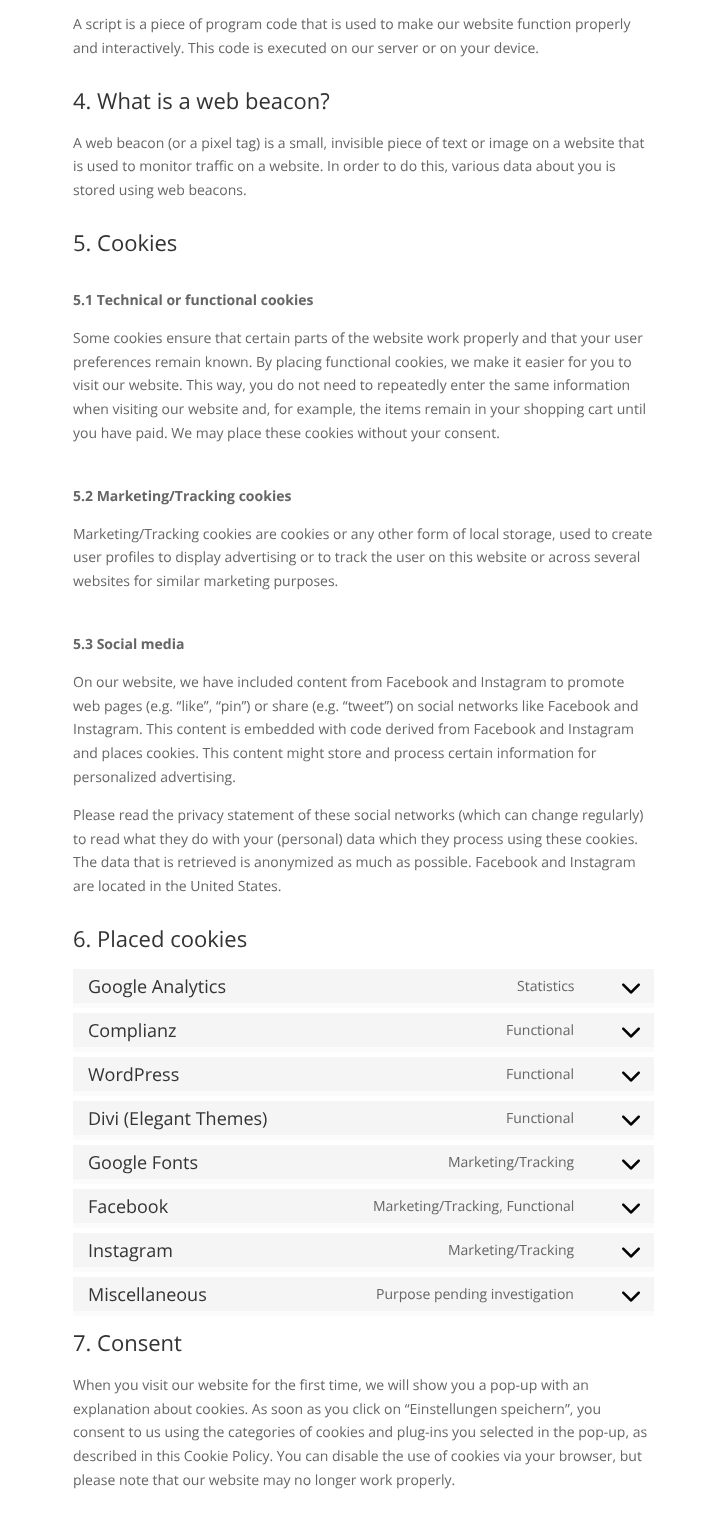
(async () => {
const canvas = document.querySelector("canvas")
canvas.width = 727
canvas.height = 1522
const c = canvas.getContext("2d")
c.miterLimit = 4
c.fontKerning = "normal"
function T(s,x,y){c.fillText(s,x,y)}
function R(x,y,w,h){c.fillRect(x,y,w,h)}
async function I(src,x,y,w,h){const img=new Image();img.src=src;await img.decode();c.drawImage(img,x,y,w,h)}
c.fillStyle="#fff"
R(0,0,727,1522)
c.font="14px Open Sans"
c.fillStyle="#666"
T("A script is a piece of program code that is used to make our website function properly",73,29)
T("and interactively. This code is executed on our server or on your device.",73,53)
c.font="22px Open Sans"
c.fillStyle="#333"
T("4. What is a web beacon?",73,109)
c.font="14px Open Sans"
c.fillStyle="#666"
T("A web beacon (or a pixel tag) is a small, invisible piece of text or image on a website that",73,148)
T("is used to monitor traffic on a website. In order to do this, various data about you is",73,171)
T("stored using web beacons.",73,195)
c.font="22px Open Sans"
c.fillStyle="#333"
T("5. Cookies",73,251)
c.font="bold 14px Open Sans"
c.fillStyle="#666"
T("5.1 Technical or functional cookies",73,305)
c.font="14px Open Sans"
T("Some cookies ensure that certain parts of the website work properly and that your user",73,343)
T("preferences remain known. By placing functional cookies, we make it easier for you to",73,367)
T("visit our website. This way, you do not need to repeatedly enter the same information",73,390)
T("when visiting our website and, for example, the items remain in your shopping cart until",73,414)
T("you have paid. We may place these cookies without your consent.",73,438)
c.font="bold 14px Open Sans"
T("5.2 Marketing/Tracking cookies",73,501)
c.font="14px Open Sans"
T("Marketing/Tracking cookies are cookies or any other form of local storage, used to create",73,539)
T("user profiles to display advertising or to track the user on this website or across several",73,562)
T("websites for similar marketing purposes.",73,586)
c.font="bold 14px Open Sans"
T("5.3 Social media",73,649)
c.font="14px Open Sans"
T("On our website, we have included content from Facebook and Instagram to promote",73,687)
T("web pages (e.g. “like”, “pin”) or share (e.g. “tweet”) on social networks like Facebook and",73,711)
T("Instagram. This content is embedded with code derived from Facebook and Instagram",73,734)
T("and places cookies. This content might store and process certain information for",73,758)
T("personalized advertising.",73,782)
T("Please read the privacy statement of these social networks (which can change regularly)",73,820)
T("to read what they do with your (personal) data which they process using these cookies.",73,844)
T("The data that is retrieved is anonymized as much as possible. Facebook and Instagram",73,867)
T("are located in the United States.",73,891)
c.font="22px Open Sans"
c.fillStyle="#333"
T("6. Placed cookies",73,947)
c.fillStyle="#fbfbfb"
R(73,1003,581,5)
c.fillStyle="#f5f5f5"
R(73,969,581,34)
c.font="18px Open Sans"
c.fillStyle="#333"
T("Google Analytics",88,993)
c.font="14px Open Sans"
c.fillStyle="#666"
T("Statistics",517,991)
await I("1.png",622,983,18,11)
c.fillStyle="#fbfbfb"
R(73,1047,581,5)
c.fillStyle="#f5f5f5"
R(73,1013,581,34)
c.font="18px Open Sans"
c.fillStyle="#333"
T("Complianz",88,1037)
c.font="14px Open Sans"
c.fillStyle="#666"
T("Functional",506,1035)
await I("1.png",622,1027,18,11)
c.fillStyle="#fbfbfb"
R(73,1091,581,5)
c.fillStyle="#f5f5f5"
R(73,1057,581,34)
c.font="18px Open Sans"
c.fillStyle="#333"
T("WordPress",88,1081)
c.font="14px Open Sans"
c.fillStyle="#666"
T("Functional",506,1079)
await I("1.png",622,1071,18,11)
c.fillStyle="#fbfbfb"
R(73,1135,581,5)
c.fillStyle="#f5f5f5"
R(73,1101,581,34)
c.font="18px Open Sans"
c.fillStyle="#333"
T("Divi (Elegant Themes)",88,1125)
c.font="14px Open Sans"
c.fillStyle="#666"
T("Functional",506,1123)
await I("1.png",622,1115,18,11)
c.fillStyle="#fbfbfb"
R(73,1179,581,5)
c.fillStyle="#f5f5f5"
R(73,1145,581,34)
c.font="18px Open Sans"
c.fillStyle="#333"
T("Google Fonts",88,1169)
c.font="14px Open Sans"
c.fillStyle="#666"
T("Marketing/Tracking",448,1167)
await I("1.png",622,1159,18,11)
c.fillStyle="#fbfbfb"
R(73,1223,581,5)
c.fillStyle="#f5f5f5"
R(73,1189,581,34)
c.font="18px Open Sans"
c.fillStyle="#333"
T("Facebook",88,1213)
c.font="14px Open Sans"
c.fillStyle="#666"
T("Marketing/Tracking, Functional",373,1211)
await I("1.png",622,1203,18,11)
c.fillStyle="#fbfbfb"
R(73,1267,581,5)
c.fillStyle="#f5f5f5"
R(73,1233,581,34)
c.font="18px Open Sans"
c.fillStyle="#333"
T("Instagram",88,1257)
c.font="14px Open Sans"
c.fillStyle="#666"
T("Marketing/Tracking",448,1255)
await I("1.png",622,1247,18,11)
c.fillStyle="#fbfbfb"
R(73,1311,581,5)
c.fillStyle="#f5f5f5"
R(73,1277,581,34)
c.font="18px Open Sans"
c.fillStyle="#333"
T("Miscellaneous",88,1301)
c.font="14px Open Sans"
c.fillStyle="#666"
T("Purpose pending investigation",376,1299)
await I("1.png",622,1291,18,11)
c.font="22px Open Sans"
c.fillStyle="#333"
T("7. Consent",73,1351)
c.font="14px Open Sans"
c.fillStyle="#666"
T("When you visit our website for the first time, we will show you a pop-up with an",73,1390)
T("explanation about cookies. As soon as you click on “Einstellungen speichern”, you",73,1414)
T("consent to us using the categories of cookies and plug-ins you selected in the pop-up, as",73,1437)
T("described in this Cookie Policy. You can disable the use of cookies via your browser, but",73,1461)
T("please note that our website may no longer work properly.",73,1485)
})()
